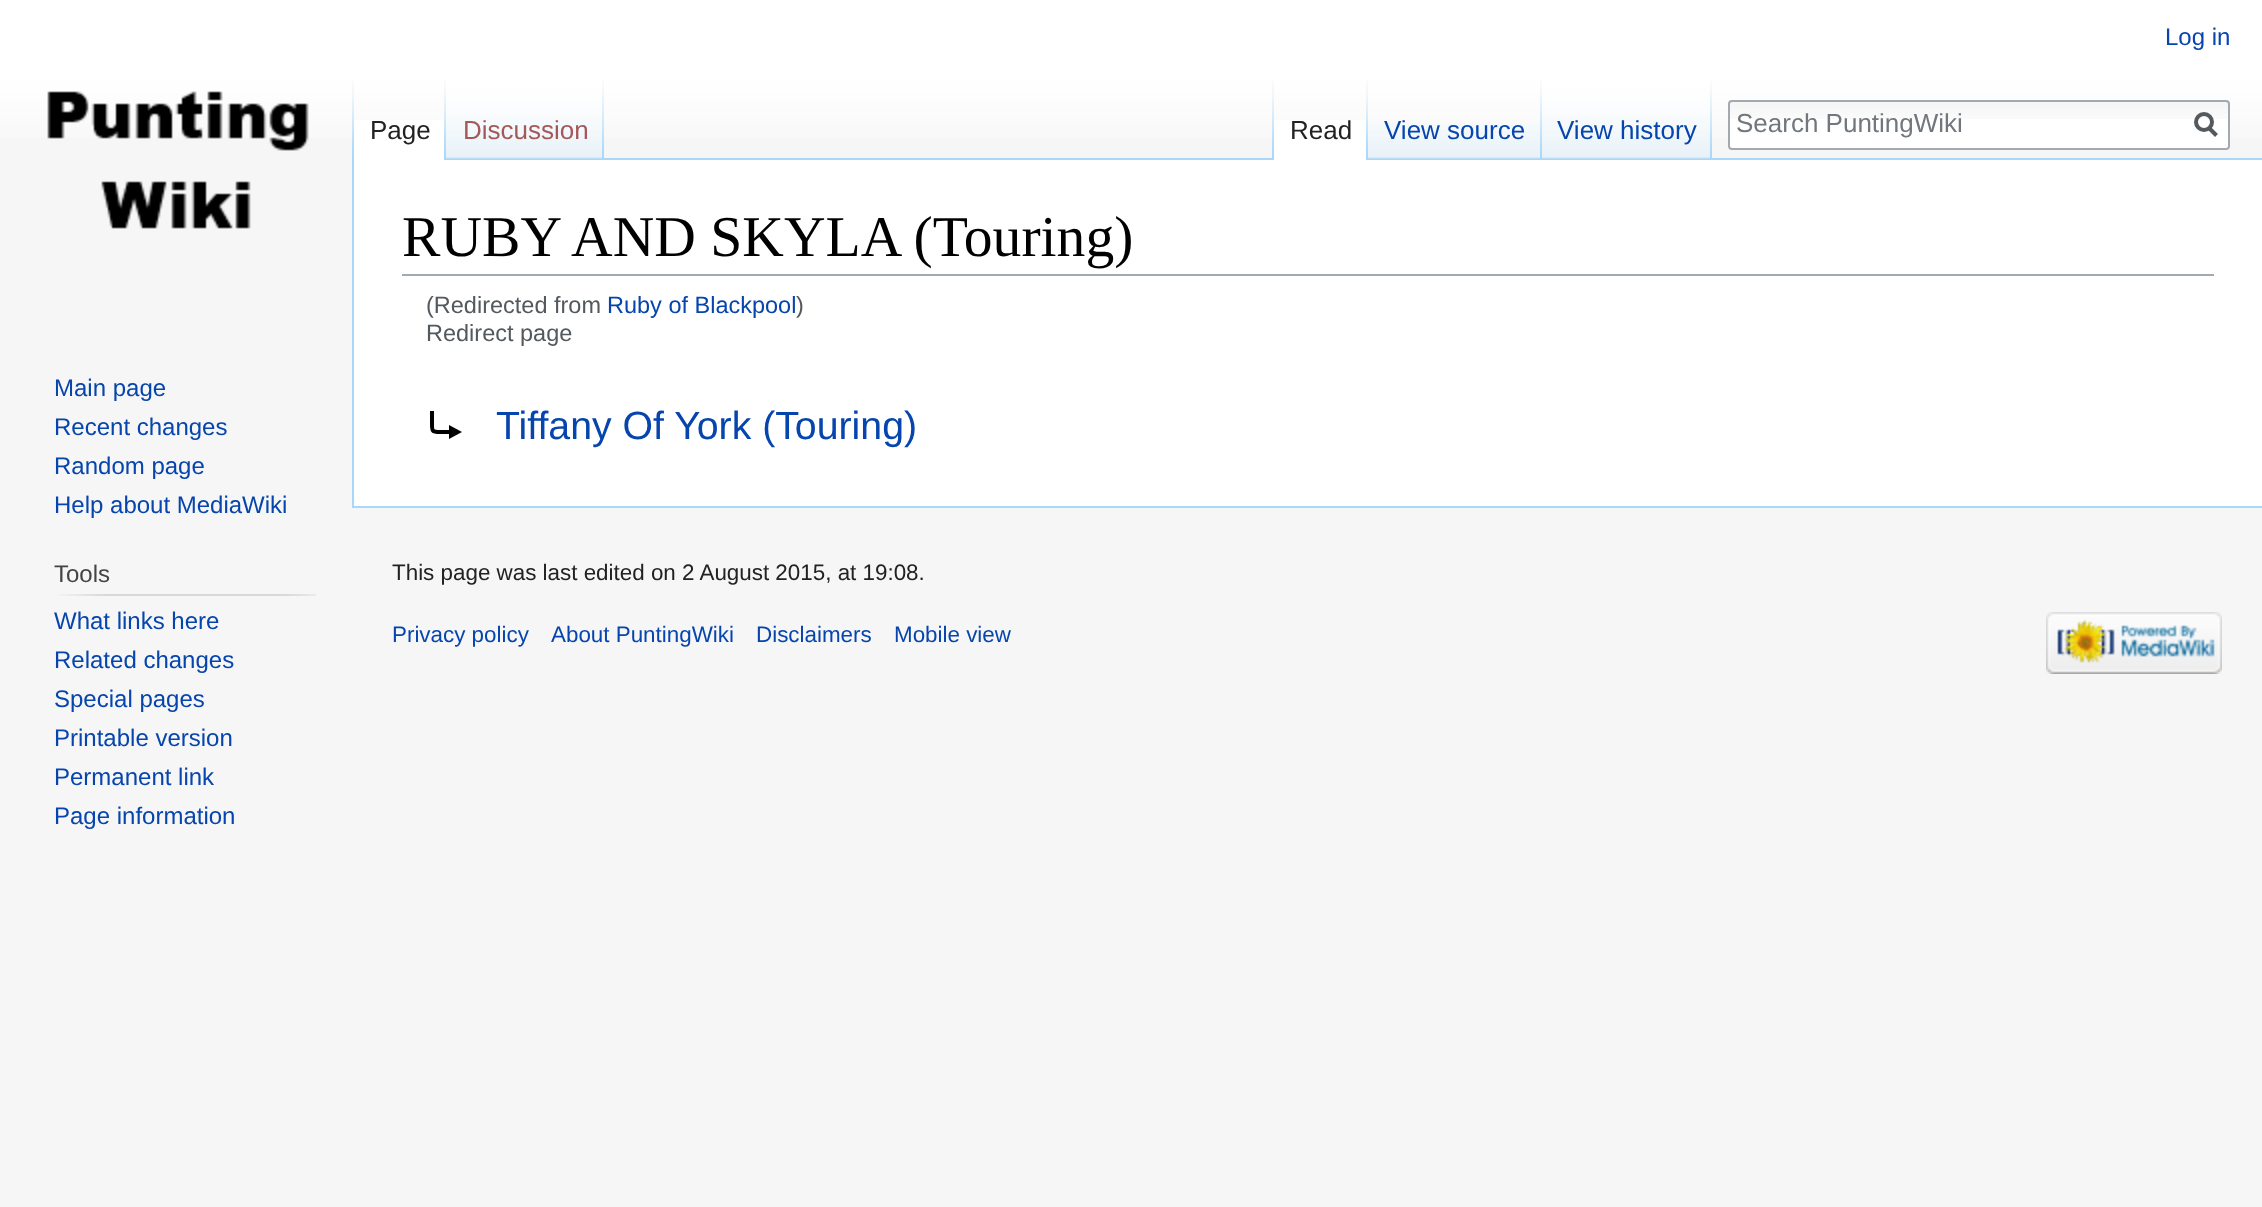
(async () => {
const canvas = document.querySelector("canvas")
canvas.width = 2262
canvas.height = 1207
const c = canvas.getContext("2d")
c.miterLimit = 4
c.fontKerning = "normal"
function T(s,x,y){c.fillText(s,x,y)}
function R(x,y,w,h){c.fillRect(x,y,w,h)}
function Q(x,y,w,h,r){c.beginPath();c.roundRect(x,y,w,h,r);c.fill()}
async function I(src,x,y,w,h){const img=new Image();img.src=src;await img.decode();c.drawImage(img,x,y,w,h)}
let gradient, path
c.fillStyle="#f6f6f6"
R(0,0,2262,1207)
gradient = c.createLinearGradient(1131,0,1131,160)
gradient.addColorStop(.5,"#fff")
gradient.addColorStop(1,"#f6f6f6")
c.fillStyle = gradient
R(0,0,2262,138)
c.font="24px Liberation Sans"
c.fillStyle="#0645ad"
T("Log in",2165,45)
await I("1.png",352,80,2,78)
c.fillStyle="#fff"
R(354,120,90,40)
await I("2.png",444,80,2,80)
c.font="26px Liberation Sans"
c.fillStyle="#222"
T("Page",370,139)
c.fillStyle="#a7d7f9"
R(446,158,1816,2)
await I("3.png",446,80,156,79)
await I("4.png",602,80,2,79)
c.fillStyle="#a55858"
T("Discussion",463,139)
await I("1.png",1272,80,2,78)
c.fillStyle="#fff"
R(1274,120,92,40)
await I("2.png",1366,80,2,80)
c.fillStyle="#222"
T("Read",1290,139)
await I("5.png",1368,123,172,36)
await I("4.png",1540,80,2,79)
c.fillStyle="#0645ad"
T("View source",1384,139)
await I("6.png",1542,80,168,79)
await I("4.png",1710,80,2,79)
T("View history",1557,139)
c.fillStyle="#fff"
Q(1728,100,502,50,4)
await I("7.png",1728,102,502,17)
c.beginPath()
c.roundRect(1729,101,500,48,3)
c.strokeStyle="#a2a9b1"
c.lineWidth=2
c.stroke()
c.fillStyle="#72777d"
T("Search PuntingWiki",1736,132)
path = new Path2D("M2216.5 135.5l-8-8")
c.strokeStyle="#54595d"
c.lineWidth=4
c.stroke(path)
c.beginPath()
c.arc(2204,122,8,0,7)
c.stroke()
await I("8.png",47,91,262,138)
c.font="24px Liberation Sans"
c.fillStyle="#0645ad"
T("Main page",54,396)
T("Recent changes",54,435)
T("Random page",54,474)
T("Help about MediaWiki",54,513)
c.fillStyle="#444"
T("Tools",54,582)
await I("9.png",59,594,257,2)
c.fillStyle="#0645ad"
T("What links here",54,629)
T("Related changes",54,668)
T("Special pages",54,707)
T("Printable version",54,746)
T("Permanent link",54,785)
T("Page information",54,824)
c.fillStyle="#fff"
R(354,160,1908,346)
c.fillStyle="#a7d7f9"
R(352,506,1910,2)
R(352,158,2,350)
c.fillStyle="#a2a9b1"
R(402,274,1812,2)
c.font="57.6px Liberation Serif"
c.fillStyle="#000"
T("RUBY AND SKYLA (Touring)",402,256)
c.font="23.5px Liberation Sans"
c.fillStyle="#54595d"
T("(Redirected from",426,313)
c.fillStyle="#0645ad"
T("Ruby of Blackpool",607,313)
c.fillStyle="#54595d"
T(")",796,313)
T("Redirect page",426,341)
c.font="39.25px Liberation Sans"
c.fillStyle="#0645ad"
T("Tiffany Of York (Touring)",496,439)
path = new Path2D("M432 411v11.5c0 8.5-.5 9.5 8 9.5h14")
c.strokeStyle="#000"
c.stroke(path)
c.fillStyle="#000"
path = new Path2D("M449 425v14l13-7z")
c.fill(path)
c.font="22.4px Liberation Sans"
c.fillStyle="#222"
T("This page was last edited on 2 August 2015, at 19:08.",392,580)
c.fillStyle="#0645ad"
T("Privacy policy",392,642)
T("About PuntingWiki",551,642)
T("Disclaimers",756,642)
T("Mobile view",894,642)
await I("10.png",2046,612,176,62)
})()
